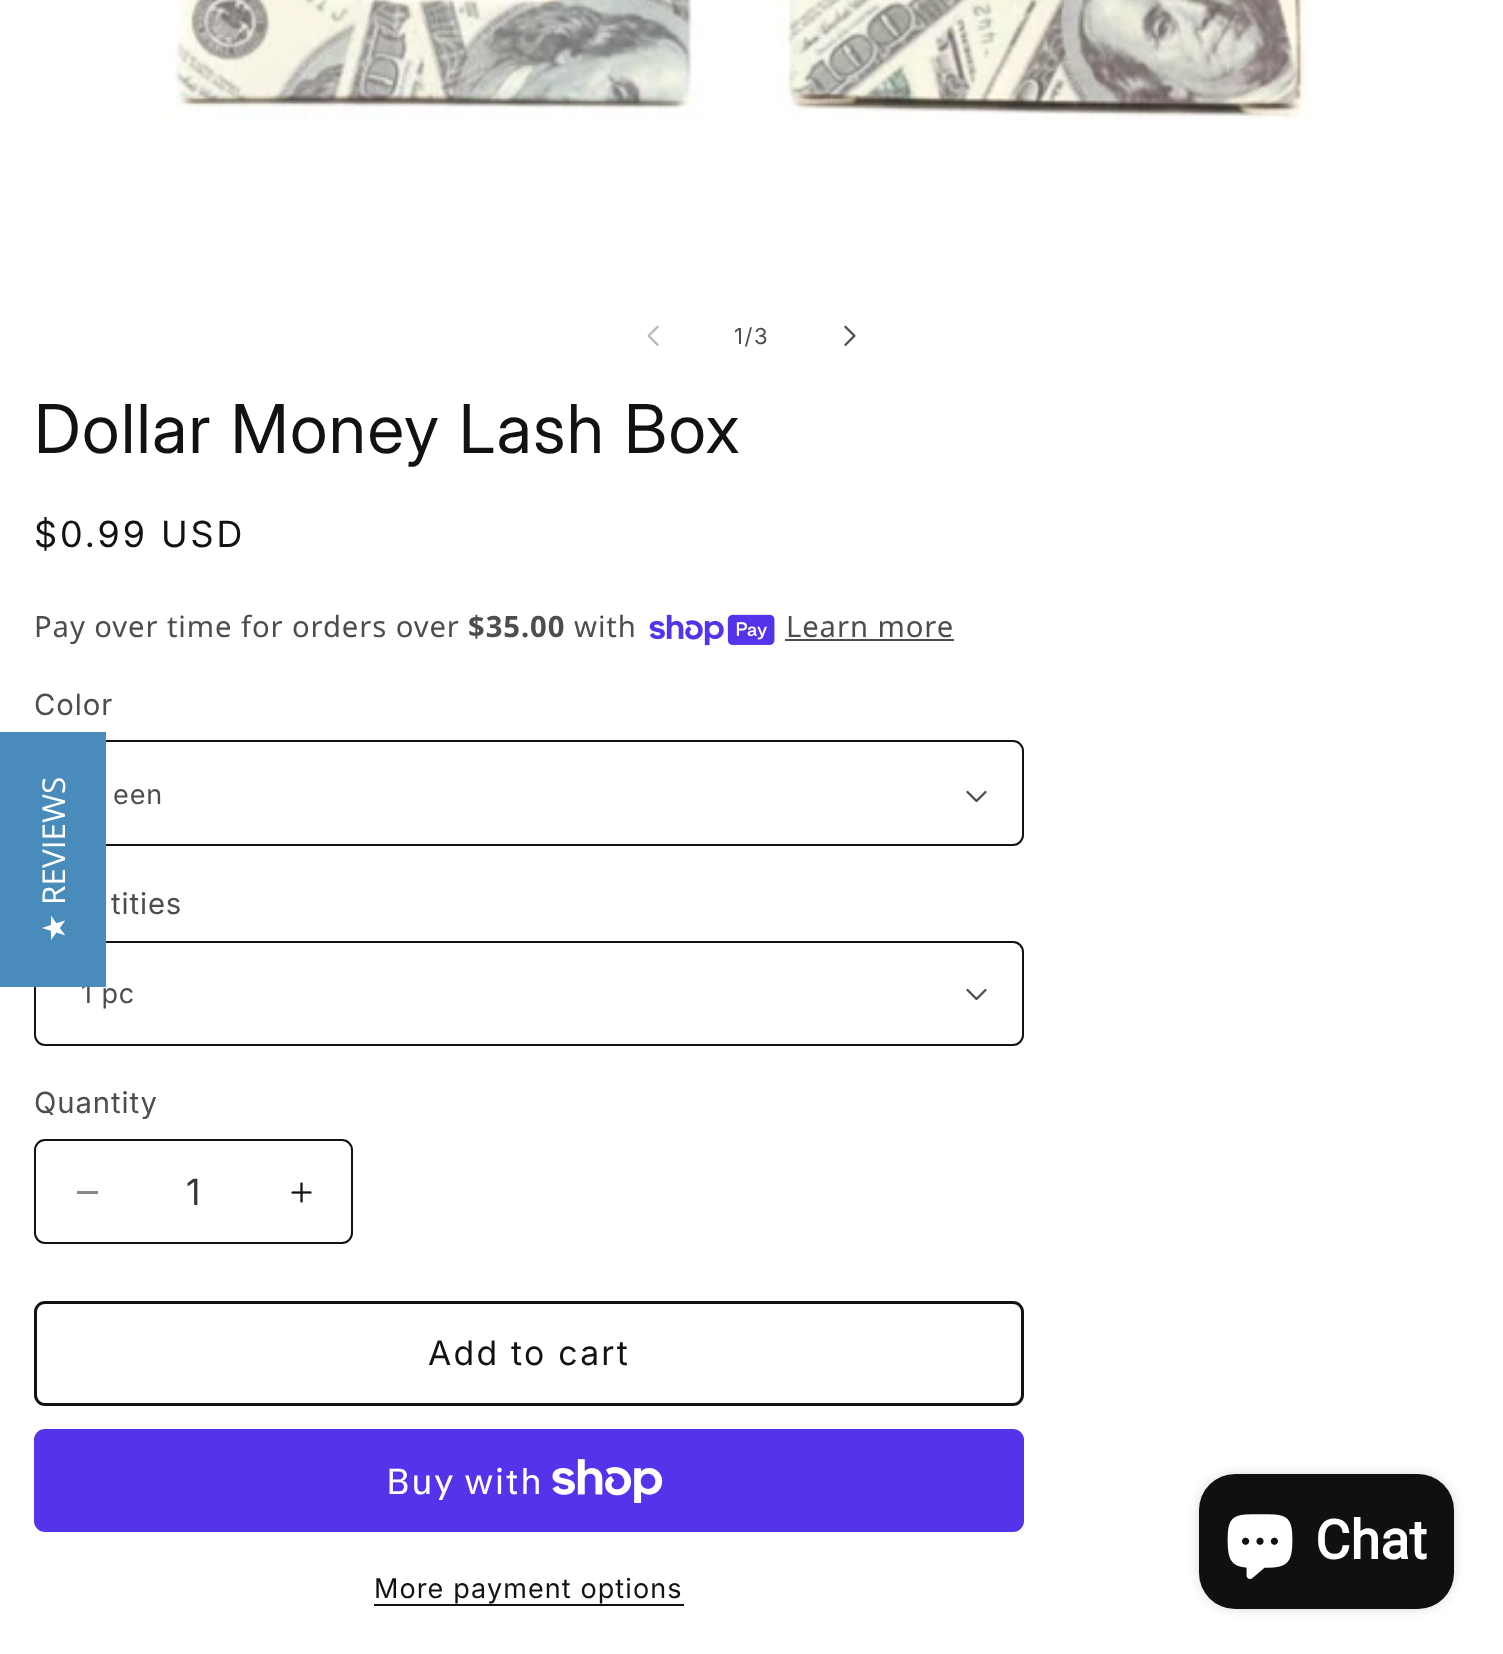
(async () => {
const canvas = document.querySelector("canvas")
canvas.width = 1503
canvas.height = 1654
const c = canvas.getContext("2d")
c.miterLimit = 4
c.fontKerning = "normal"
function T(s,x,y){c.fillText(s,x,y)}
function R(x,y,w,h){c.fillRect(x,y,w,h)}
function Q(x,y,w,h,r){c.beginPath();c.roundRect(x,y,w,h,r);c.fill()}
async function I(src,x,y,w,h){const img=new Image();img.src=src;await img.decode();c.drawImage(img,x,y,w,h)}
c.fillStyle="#fff"
R(0,0,1503,1654)
await I("1.png",167,0,1144,120)
await I("2.png",647,325,12,21)
c.letterSpacing="1.5px"
c.font="22px 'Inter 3'"
c.fillStyle="#4d4d4d"
T("1/3",734,344)
await I("3.png",844,325,12,21)
c.letterSpacing="1.35px"
c.font="67.5px Inter"
c.fillStyle="#121212"
T("Dollar Money Lash Box",34,453)
c.letterSpacing="3px"
c.font="36px 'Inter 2'"
T("$0.99 USD",34,547)
c.letterSpacing="0.9px"
c.font="29.25px Noto Sans"
c.fillStyle="#4d4d4d"
T("Pay over time for orders over",34,637)
c.font="bold 29.25px Noto Sans"
T("$35.00",468,637)
c.font="29.25px Noto Sans"
T("with",574,637)
await I("4.png",649,614,126,32)
T("Learn more",786,637)
R(785,639,169,2)
c.font="29.25px 'Inter 3'"
T("Color",34,715)
await I("5.png",966,790,21,13)
c.beginPath()
c.roundRect(35,741,988,104,10)
c.strokeStyle="#121212"
c.lineWidth=2
c.stroke()
c.font="27px 'Inter 3'"
T("een",113,804)
c.font="29.25px 'Inter 3'"
T("tities",111,914)
await I("5.png",966,988,21,13)
c.beginPath()
c.roundRect(35,942,988,103,10)
c.stroke()
c.font="27px 'Inter 3'"
T("1 pc",81,1003)
c.font="29.25px 'Inter 3'"
T("Quantity",34,1113)
c.fillStyle="#898989"
R(77,1191,21,3)
await I("6.png",291,1182,21,21)
c.beginPath()
c.roundRect(35,1140,317,103,10)
c.stroke()
c.letterSpacing="0px"
c.font="36px 'Inter 2'"
c.fillStyle="#363636"
T("1",186,1205)
c.beginPath()
c.roundRect(35.5,1302.5,987,102,9.5)
c.lineWidth=3
c.stroke()
c.letterSpacing="2.25px"
c.font="33.75px 'Inter 3'"
c.fillStyle="#121212"
T("Add to cart",428,1365)
c.fillStyle="#5433eb"
Q(34,1429,990,103,11)
c.letterSpacing="1.35px"
c.font="36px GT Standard"
c.fillStyle="#fff"
T("Buy with",386,1494)
await I("7.png",552,1459,111,44)
c.letterSpacing="1.1px"
c.font="27px 'Inter 3'"
c.fillStyle="#121212"
T("More payment options",374,1598)
R(374,1604,310,2)
c.fillStyle="#498cbc"
R(0,732,106,255)
c.letterSpacing="0px"
c.font="31.5px Open Sans"
c.fillStyle="#fff"
c.save()
c.translate(65,905)
c.rotate(-90 * Math.PI / 180)
c.fillText("REVIEWS",0,0)
c.restore()
c.font="31.5px DejaVu Sans"
c.save()
c.translate(65,942)
c.rotate(-90 * Math.PI / 180)
c.fillText("★",0,0)
c.restore()
c.fillStyle="#00000026"
c.filter="blur(5.5px)"
c.beginPath()
c.roundRect(1199,1474,255,135,36)
c.fill()
c.filter="none"
c.fillStyle="#0f1010"
Q(1199,1474,255,135,36)
await I("8.png",1227,1514,66,65)
c.font="bold 54px Roboto"
c.fillStyle="#fff"
T("Chat",1315,1559)
})()
